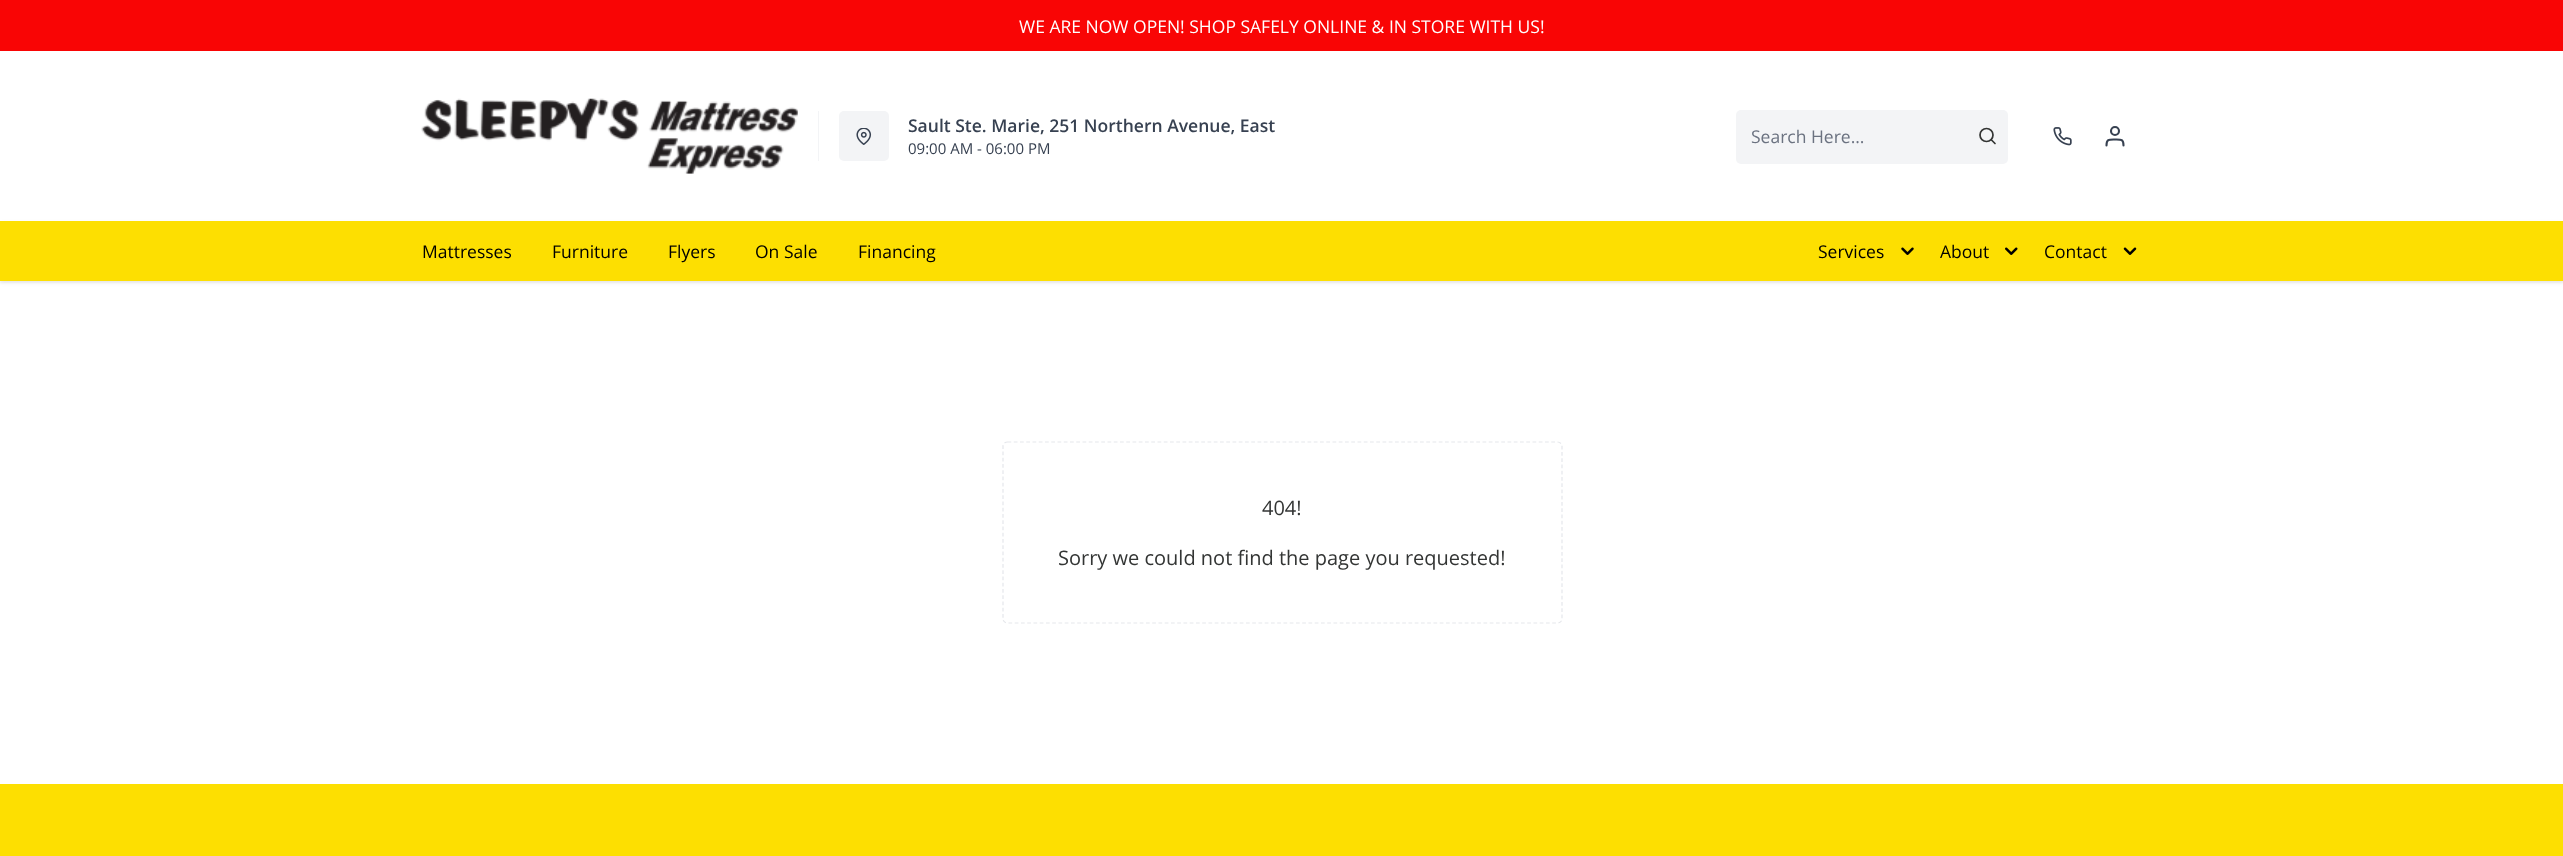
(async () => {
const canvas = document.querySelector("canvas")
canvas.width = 2563
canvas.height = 856
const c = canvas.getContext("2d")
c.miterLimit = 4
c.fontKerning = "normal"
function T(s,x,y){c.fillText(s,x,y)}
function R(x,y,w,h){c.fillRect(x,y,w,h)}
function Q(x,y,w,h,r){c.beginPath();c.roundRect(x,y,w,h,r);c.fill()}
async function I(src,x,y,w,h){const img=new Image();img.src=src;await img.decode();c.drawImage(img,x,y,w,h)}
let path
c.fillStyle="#fff"
R(0,0,2563,856)
c.fillStyle="#f90505"
R(0,0,2563,51)
c.font="17.5px Open Sans"
c.fillStyle="#fff"
T("WE ARE NOW OPEN! SHOP SAFELY ONLINE & IN STORE WITH US!",1019,33)
await I("1.png",421,98,377,76)
c.fillStyle="#f3f4f6"
R(818,111,1,50)
Q(839,111,50,50,5)
await I("2.png",856,128,16,17)
c.font="600 17.5px Open Sans"
c.fillStyle="#374151"
T("Sault Ste. Marie, 251 Northern Avenue, East",908,132)
c.font="15px Open Sans"
T("09:00 AM - 06:00 PM",908,154)
c.fillStyle="#f3f4f6"
Q(1736,110,272,54,5)
c.font="17.5px Open Sans"
c.fillStyle="#6b7280"
T("Search Here...",1751,143)
c.beginPath()
c.arc(1986.5,135,6.5,0,7)
c.strokeStyle="#333534"
c.lineWidth=1.7
c.stroke()
path = new Path2D("M1995 143.5l-3.5-3.5")
c.lineCap="round"
c.lineJoin="round"
c.stroke(path)
await I("3.png",2053,127,19,19)
path = new Path2D("M2123.5 145.5c0-6.5-2.5-6-8.5-6c-6 0-8.5-.5-8.5 6")
c.strokeStyle="#374151"
c.lineWidth=2.1
c.stroke(path)
c.beginPath()
c.arc(2115,131,4,0,7)
c.stroke()
c.fillStyle="#0000000d"
c.filter="blur(1px)"
c.beginPath()
c.rect(0,223,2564,60)
c.fill()
c.filter="none"
c.filter="blur(2px)"
c.beginPath()
c.rect(0,223,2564,60)
c.fill()
c.filter="none"
c.fillStyle="#fddf01"
R(0,221,2563,60)
c.fillStyle="#000"
T("Mattresses",422,258)
T("Furniture",552,258)
T("Flyers",668,258)
T("On Sale",755,258)
T("Financing",858,258)
T("Services",1818,258)
await I("4.png",1901,247,13,8)
T("About",1940,258)
await I("5.png",2005,247,13,8)
T("Contact",2044,258)
await I("6.png",2123,247,14,8)
path = new Path2D("M1007.5 442h550c2.5 0 4.5 2 4.5 4v173c0 2-2 4-4.5 4h-550c-2.5 0-4.5-2-4.5-4v-173c0-2 2-4 4.5-4z")
c.strokeStyle="#e5e7eb"
c.lineWidth=1.2
c.lineCap="butt"
c.lineJoin="miter"
c.setLineDash([3.75,2.5])
c.stroke(path)
c.font="20px Open Sans"
c.fillStyle="#333534"
T("404!",1262,515)
T("Sorry we could not find the page you requested!",1058,565)
c.fillStyle="#fddf01"
R(0,784,2563,72)
})()
